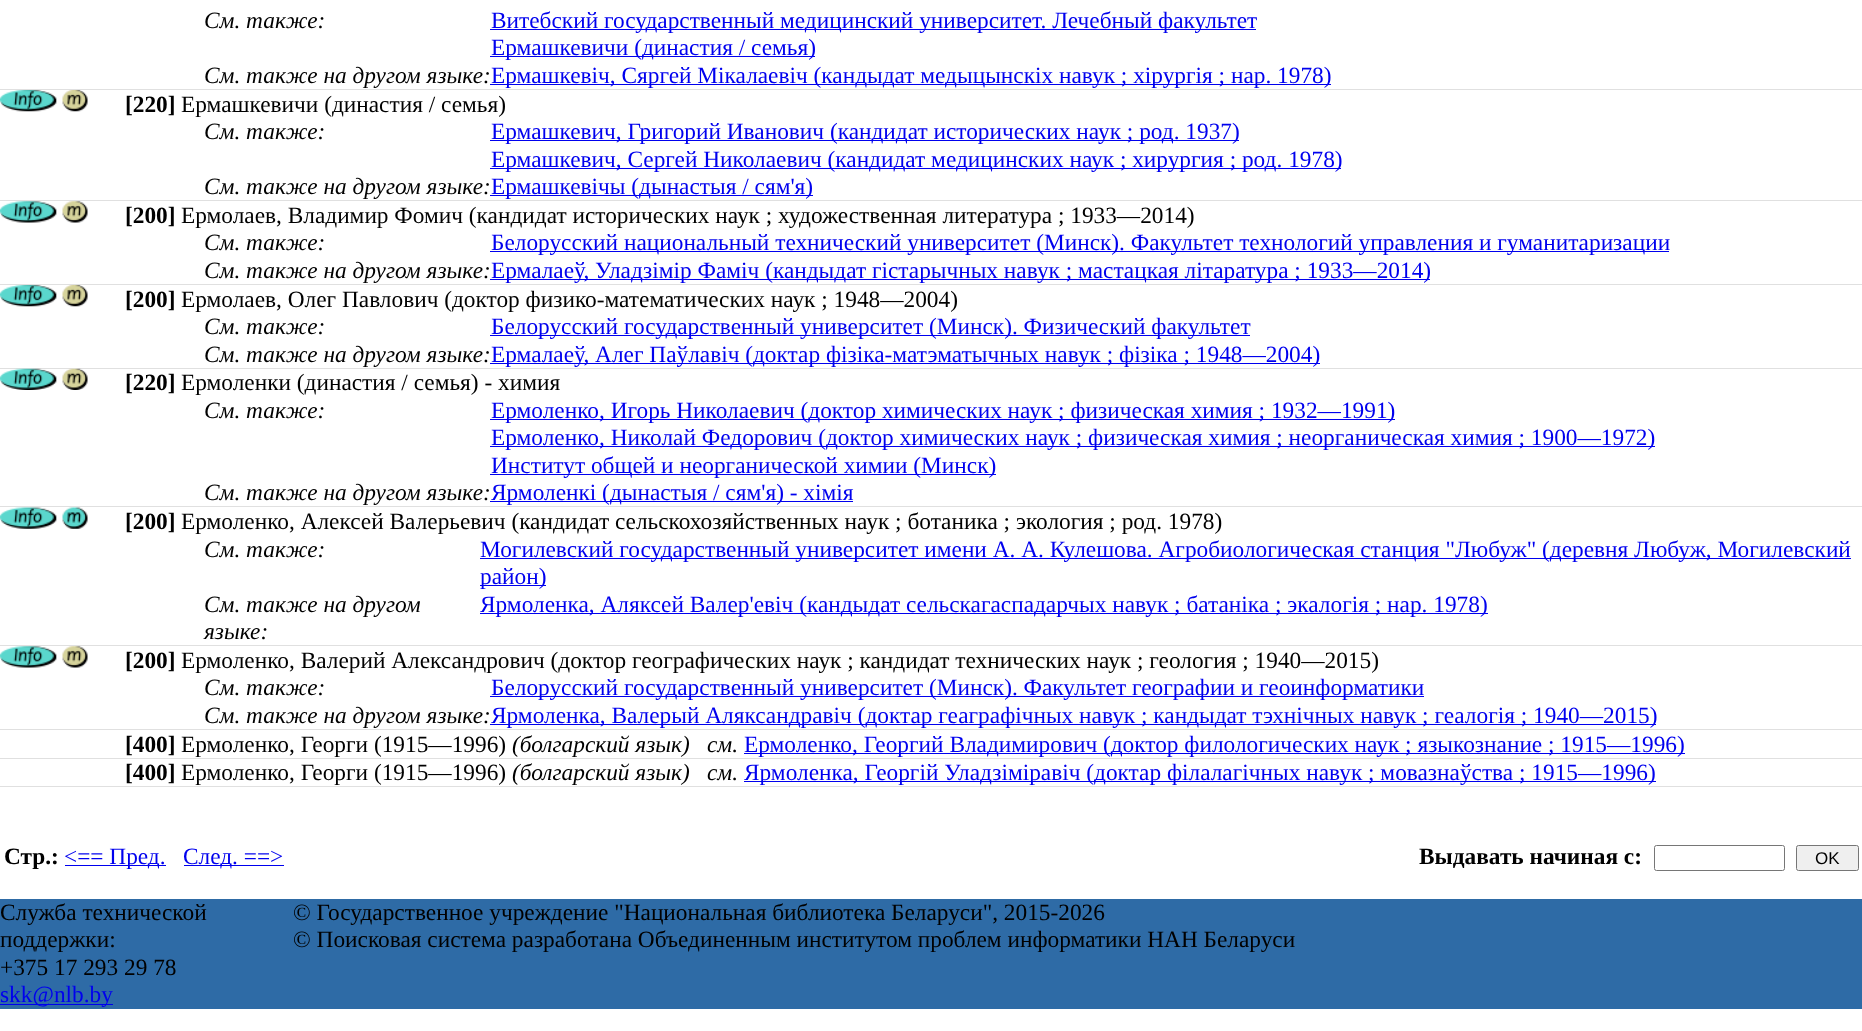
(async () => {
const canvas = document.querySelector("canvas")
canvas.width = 1862
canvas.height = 1031
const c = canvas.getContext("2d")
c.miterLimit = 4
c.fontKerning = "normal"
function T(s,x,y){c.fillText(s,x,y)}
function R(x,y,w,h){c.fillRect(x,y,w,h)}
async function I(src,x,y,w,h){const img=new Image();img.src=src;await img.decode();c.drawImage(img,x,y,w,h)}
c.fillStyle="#fff"
R(0,0,1862,1031)
c.fillStyle="#e0e0e0"
R(0,89,1862,1)
c.font="italic 23.33px Liberation Serif"
c.fillStyle="#000"
T("См. также:",204,28)
c.fillStyle="#00e"
R(490,29,766,1)
c.font="23.33px Liberation Serif"
T("Витебский государственный медицинский университет. Лечебный факультет",491,28)
R(490,56,325,1)
T("Ермашкевичи (династия / семья)",491,55)
c.font="italic 23.33px Liberation Serif"
c.fillStyle="#000"
T("См. также на другом языке:",204,83)
c.fillStyle="#00e"
R(490,84,841,1)
c.font="23.33px Liberation Serif"
T("Ермашкевіч, Сяргей Мікалаевіч (кандыдат медыцынскіх навук ; хірургія ; нар. 1978)",491,83)
await I("1.png",0,90,57,22)
await I("2.png",62,90,26,22)
c.font="bold 23.33px Liberation Serif"
c.fillStyle="#000"
T("[220]",125,112)
c.fillStyle="#e0e0e0"
R(0,200,1862,1)
c.font="23.33px Liberation Serif"
c.fillStyle="#000"
T("Ермашкевичи (династия / семья)",181,112)
c.font="italic 23.33px Liberation Serif"
T("См. также:",204,139)
c.fillStyle="#00e"
R(490,140,749,1)
c.font="23.33px Liberation Serif"
T("Ермашкевич, Григорий Иванович (кандидат исторических наук ; род. 1937)",491,139)
R(490,168,851,1)
T("Ермашкевич, Сергей Николаевич (кандидат медицинских наук ; хирургия ; род. 1978)",491,167)
c.font="italic 23.33px Liberation Serif"
c.fillStyle="#000"
T("См. также на другом языке:",204,194)
c.fillStyle="#00e"
R(490,195,323,1)
c.font="23.33px Liberation Serif"
T("Ермашкевічы (дынастыя / сям'я)",491,194)
await I("3.png",0,201,57,22)
await I("4.png",62,201,26,22)
c.font="bold 23.33px Liberation Serif"
c.fillStyle="#000"
T("[200]",125,223)
c.fillStyle="#e0e0e0"
R(0,284,1862,1)
c.font="23.33px Liberation Serif"
c.fillStyle="#000"
T("Ермолаев, Владимир Фомич (кандидат исторических наук ; художественная литература ; 1933—2014)",181,223)
c.font="italic 23.33px Liberation Serif"
T("См. также:",204,250)
c.fillStyle="#00e"
R(490,251,1179,1)
c.font="23.33px Liberation Serif"
T("Белорусский национальный технический университет (Минск). Факультет технологий управления и гуманитаризации",491,250)
c.font="italic 23.33px Liberation Serif"
c.fillStyle="#000"
T("См. также на другом языке:",204,278)
c.fillStyle="#00e"
R(490,279,940,1)
c.font="23.33px Liberation Serif"
T("Ермалаеў, Уладзімір Фаміч (кандыдат гістарычных навук ; мастацкая літаратура ; 1933—2014)",491,278)
await I("1.png",0,285,57,22)
await I("2.png",62,285,26,22)
c.font="bold 23.33px Liberation Serif"
c.fillStyle="#000"
T("[200]",125,307)
c.fillStyle="#e0e0e0"
R(0,368,1862,1)
c.font="23.33px Liberation Serif"
c.fillStyle="#000"
T("Ермолаев, Олег Павлович (доктор физико-математических наук ; 1948—2004)",181,307)
c.font="italic 23.33px Liberation Serif"
T("См. также:",204,334)
c.fillStyle="#00e"
R(490,335,760,1)
c.font="23.33px Liberation Serif"
T("Белорусский государственный университет (Минск). Физический факультет",491,334)
c.font="italic 23.33px Liberation Serif"
c.fillStyle="#000"
T("См. также на другом языке:",204,362)
c.fillStyle="#00e"
R(490,363,830,1)
c.font="23.33px Liberation Serif"
T("Ермалаеў, Алег Паўлавіч (доктар фізіка-матэматычных навук ; фізіка ; 1948—2004)",491,362)
await I("5.png",0,368,57,22)
await I("6.png",62,368,26,22)
c.font="bold 23.33px Liberation Serif"
c.fillStyle="#000"
T("[220]",125,390)
c.fillStyle="#e0e0e0"
R(0,506,1862,1)
c.font="23.33px Liberation Serif"
c.fillStyle="#000"
T("Ермоленки (династия / семья) - химия",181,390)
c.font="italic 23.33px Liberation Serif"
T("См. также:",204,418)
c.fillStyle="#00e"
R(490,419,905,1)
c.font="23.33px Liberation Serif"
T("Ермоленко, Игорь Николаевич (доктор химических наук ; физическая химия ; 1932—1991)",491,418)
R(490,446,1165,1)
T("Ермоленко, Николай Федорович (доктор химических наук ; физическая химия ; неорганическая химия ; 1900—1972)",491,445)
R(490,474,506,1)
T("Институт общей и неорганической химии (Минск)",491,473)
c.font="italic 23.33px Liberation Serif"
c.fillStyle="#000"
T("См. также на другом языке:",204,500)
c.fillStyle="#00e"
R(490,501,363,1)
c.font="23.33px Liberation Serif"
T("Ярмоленкі (дынастыя / сям'я) - хімія",491,500)
await I("7.png",0,507,57,22)
await I("8.png",62,507,26,22)
c.font="bold 23.33px Liberation Serif"
c.fillStyle="#000"
T("[200]",125,529)
c.fillStyle="#e0e0e0"
R(0,645,1862,1)
c.font="23.33px Liberation Serif"
c.fillStyle="#000"
T("Ермоленко, Алексей Валерьевич (кандидат сельскохозяйственных наук ; ботаника ; экология ; род. 1978)",181,529)
c.font="italic 23.33px Liberation Serif"
T("См. также:",204,557)
c.fillStyle="#00e"
R(480,558,1371,1)
c.font="23.33px Liberation Serif"
T("Могилевский государственный университет имени А. А. Кулешова. Агробиологическая станция \"Любуж\" (деревня Любуж, Могилевский",480,557)
R(480,585,66,1)
T("район)",480,584)
c.font="italic 23.33px Liberation Serif"
c.fillStyle="#000"
T("См. также на другом",204,612)
T("языке:",204,639)
c.fillStyle="#00e"
R(480,613,1008,1)
c.font="23.33px Liberation Serif"
T("Ярмоленка, Аляксей Валер'евіч (кандыдат сельскагаспадарчых навук ; батаніка ; экалогія ; нар. 1978)",480,612)
await I("3.png",0,646,57,22)
await I("4.png",62,646,26,22)
c.font="bold 23.33px Liberation Serif"
c.fillStyle="#000"
T("[200]",125,668)
c.fillStyle="#e0e0e0"
R(0,729,1862,1)
c.font="23.33px Liberation Serif"
c.fillStyle="#000"
T("Ермоленко, Валерий Александрович (доктор географических наук ; кандидат технических наук ; геология ; 1940—2015)",181,668)
c.font="italic 23.33px Liberation Serif"
T("См. также:",204,695)
c.fillStyle="#00e"
R(490,696,934,1)
c.font="23.33px Liberation Serif"
T("Белорусский государственный университет (Минск). Факультет географии и геоинформатики",491,695)
c.font="italic 23.33px Liberation Serif"
c.fillStyle="#000"
T("См. также на другом языке:",204,723)
c.fillStyle="#00e"
R(490,724,1166,1)
c.font="23.33px Liberation Serif"
T("Ярмоленка, Валерый Аляксандравіч (доктар геаграфічных навук ; кандыдат тэхнічных навук ; геалогія ; 1940—2015)",491,723)
c.font="bold 23.33px Liberation Serif"
c.fillStyle="#000"
T("[400]",125,752)
c.fillStyle="#e0e0e0"
R(0,758,1862,1)
c.font="23.33px Liberation Serif"
c.fillStyle="#000"
T("Ермоленко, Георги (1915—1996)",181,752)
c.font="italic 23.33px Liberation Serif"
T("(болгарский язык)",512,752)
T("см.",707,752)
c.fillStyle="#00e"
R(744,753,941,1)
c.font="23.33px Liberation Serif"
T("Ермоленко, Георгий Владимирович (доктор филологических наук ; языкознание ; 1915—1996)",744,752)
c.font="bold 23.33px Liberation Serif"
c.fillStyle="#000"
T("[400]",125,780)
c.fillStyle="#e0e0e0"
R(0,786,1862,1)
c.font="23.33px Liberation Serif"
c.fillStyle="#000"
T("Ермоленко, Георги (1915—1996)",181,780)
c.font="italic 23.33px Liberation Serif"
T("(болгарский язык)",512,780)
T("см.",707,780)
c.fillStyle="#00e"
R(744,781,912,1)
c.font="23.33px Liberation Serif"
T("Ярмоленка, Георгій Уладзіміравіч (доктар філалагічных навук ; мовазнаўства ; 1915—1996)",744,780)
c.font="bold 23.33px Liberation Serif"
c.fillStyle="#000"
T("Стр.:",4,864)
c.fillStyle="#00e"
R(65,865,101,1)
c.font="23.33px Liberation Serif"
T("<== Пред.",64,864)
R(184,865,100,1)
T("След. ==>",183,864)
c.font="bold 23.33px Liberation Serif"
c.fillStyle="#000"
T("Выдавать начиная с:",1419,864)
c.beginPath()
c.roundRect(1654.5,845.5,130,25,2)
c.strokeStyle="#767676"
c.stroke()
c.fillStyle="#efefef"
c.beginPath()
c.roundRect(1796.5,845.5,62,25,2)
c.fill()
c.stroke()
c.font="17px Liberation Sans"
c.fillStyle="#000"
T("OK",1815,864)
c.fillStyle="#2e6ba6"
R(0,899,1862,110)
c.font="23.33px Liberation Serif"
c.fillStyle="#000"
T("Служба технической",0,920)
T("поддержки:",0,947)
T("+375 17 293 29 78",0,975)
c.fillStyle="#00e"
R(0,1004,113,1)
T("skk@nlb.by",0,1002)
c.fillStyle="#000"
T("© Государственное учреждение \"Национальная библиотека Беларуси\", 2015-2026",293,920)
T("© Поисковая система разработана Объединенным институтом проблем информатики НАН Беларуси",293,947)
})()
